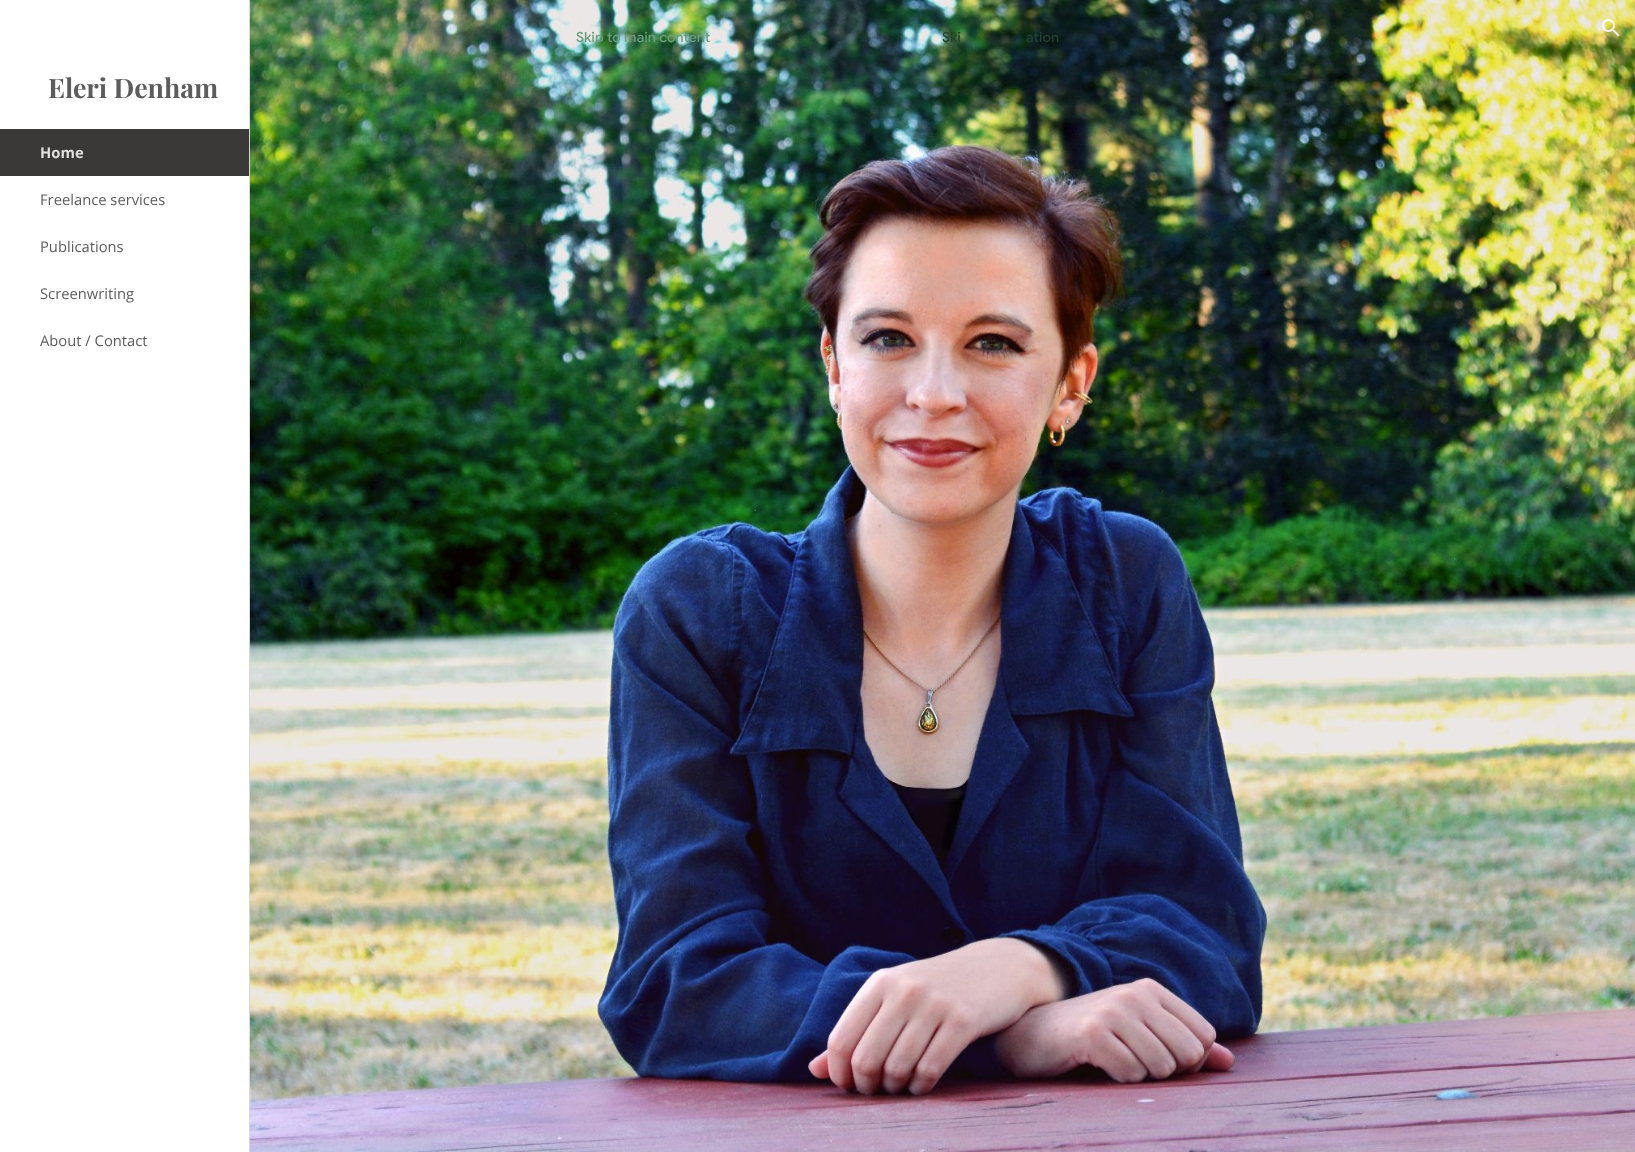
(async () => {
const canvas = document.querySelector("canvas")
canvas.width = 1635
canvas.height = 1152
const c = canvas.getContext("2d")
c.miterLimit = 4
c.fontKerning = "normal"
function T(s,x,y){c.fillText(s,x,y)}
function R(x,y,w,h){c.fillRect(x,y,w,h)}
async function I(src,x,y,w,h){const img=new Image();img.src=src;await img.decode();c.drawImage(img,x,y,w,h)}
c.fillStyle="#fff"
R(0,0,1635,1152)
await I("2.png",250,0,1385,1152)
c.letterSpacing="0.1px"
c.font="500 14px Google Sans"
c.fillStyle="#6e9c7e"
T("Skip to main content",576,42)
c.fillStyle="#23432d"
T("Ski",942,42)
T("ation",1026,42)
await I("1.png",1602,19,18,18)
c.fillStyle="#d9d9d9"
R(249,0,1,1152)
c.letterSpacing="0px"
c.font="bold 26.75px Playfair Display"
c.fillStyle="#5c5c5c"
T("Eleri Denham",48,98)
c.fillStyle="#3a3938"
R(0,129,249,47)
c.font="bold 14.75px Open Sans"
c.fillStyle="#e1dfdb"
T("Home",40,158)
c.font="14.75px Open Sans"
c.fillStyle="#5c5c5c"
T("Freelance services",40,205)
T("Publications",40,252)
T("Screenwriting",40,299)
T("About / Contact",40,346)
})()
